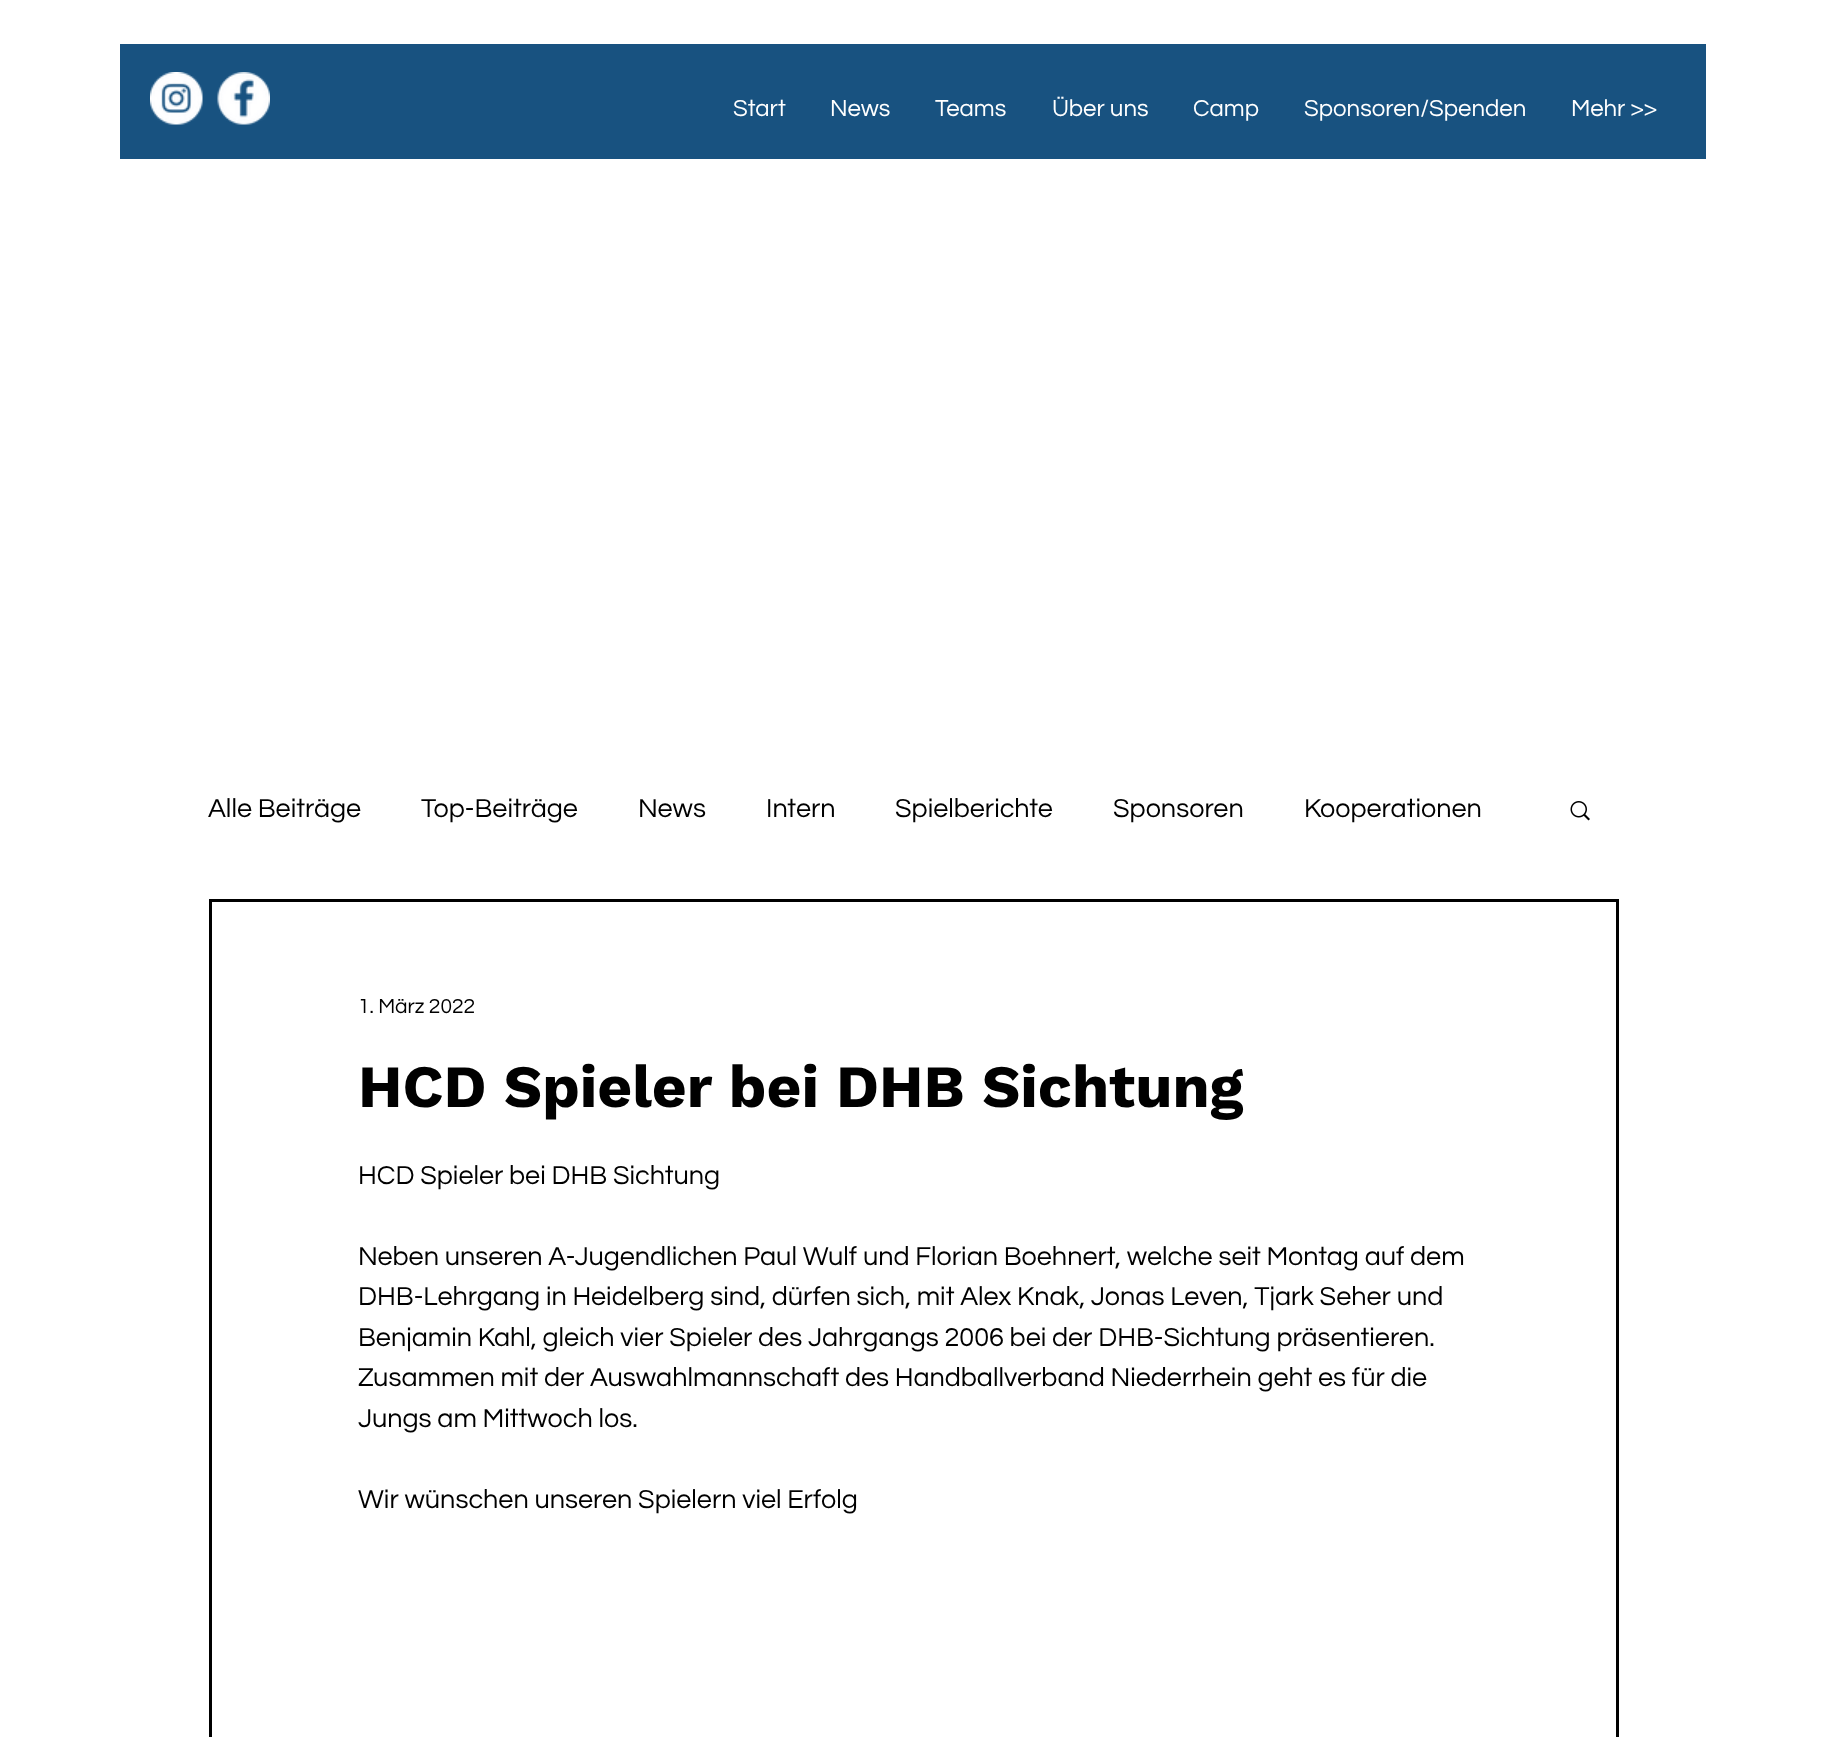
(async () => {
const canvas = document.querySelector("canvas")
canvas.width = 1825
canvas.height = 1737
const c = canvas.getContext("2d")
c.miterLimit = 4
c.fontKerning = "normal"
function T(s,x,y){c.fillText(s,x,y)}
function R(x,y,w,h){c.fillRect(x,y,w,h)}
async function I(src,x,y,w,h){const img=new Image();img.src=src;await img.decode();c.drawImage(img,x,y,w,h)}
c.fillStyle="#fff"
R(0,0,1825,1737)
c.fillStyle="#185280"
R(120,44,1586,115)
await I("1.png",150,72,53,53)
await I("2.png",217,72,53,53)
c.font="24px Questrial"
c.fillStyle="#fff"
T("Start",733,116)
T("News",830,116)
T("Teams",935,116)
T("Über uns",1052,116)
T("Camp",1193,116)
T("Sponsoren/Spenden",1304,116)
T("Mehr >>",1571,116)
c.font="27px Questrial"
c.fillStyle="#000"
T("Alle Beiträge",208,817)
T("Top-Beiträge",421,817)
T("News",638,817)
T("Intern",766,817)
T("Spielberichte",895,817)
T("Sponsoren",1113,817)
T("Kooperationen",1304,817)
await I("3.png",1570,801,20,20)
c.strokeStyle="#000"
c.lineWidth=3
c.strokeRect(210.5,900.5,1407,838)
c.font="21px Questrial"
T("1. März 2022",358,1013)
c.font="bold 60px Work Sans"
T("HCD Spieler bei DHB Sichtung",358,1107)
c.font="27px Questrial"
T("HCD Spieler bei DHB Sichtung",358,1184)
T("Neben unseren A-Jugendlichen Paul Wulf und Florian Boehnert, welche seit Montag auf dem",358,1265)
T("DHB-Lehrgang in Heidelberg sind, dürfen sich, mit Alex Knak, Jonas Leven, Tjark Seher und",358,1305)
T("Benjamin Kahl, gleich vier Spieler des Jahrgangs 2006 bei der DHB-Sichtung präsentieren.",358,1346)
T("Zusammen mit der Auswahlmannschaft des Handballverband Niederrhein geht es für die",358,1386)
T("Jungs am Mittwoch los.",358,1427)
T("Wir wünschen unseren Spielern viel Erfolg",358,1508)
})()
